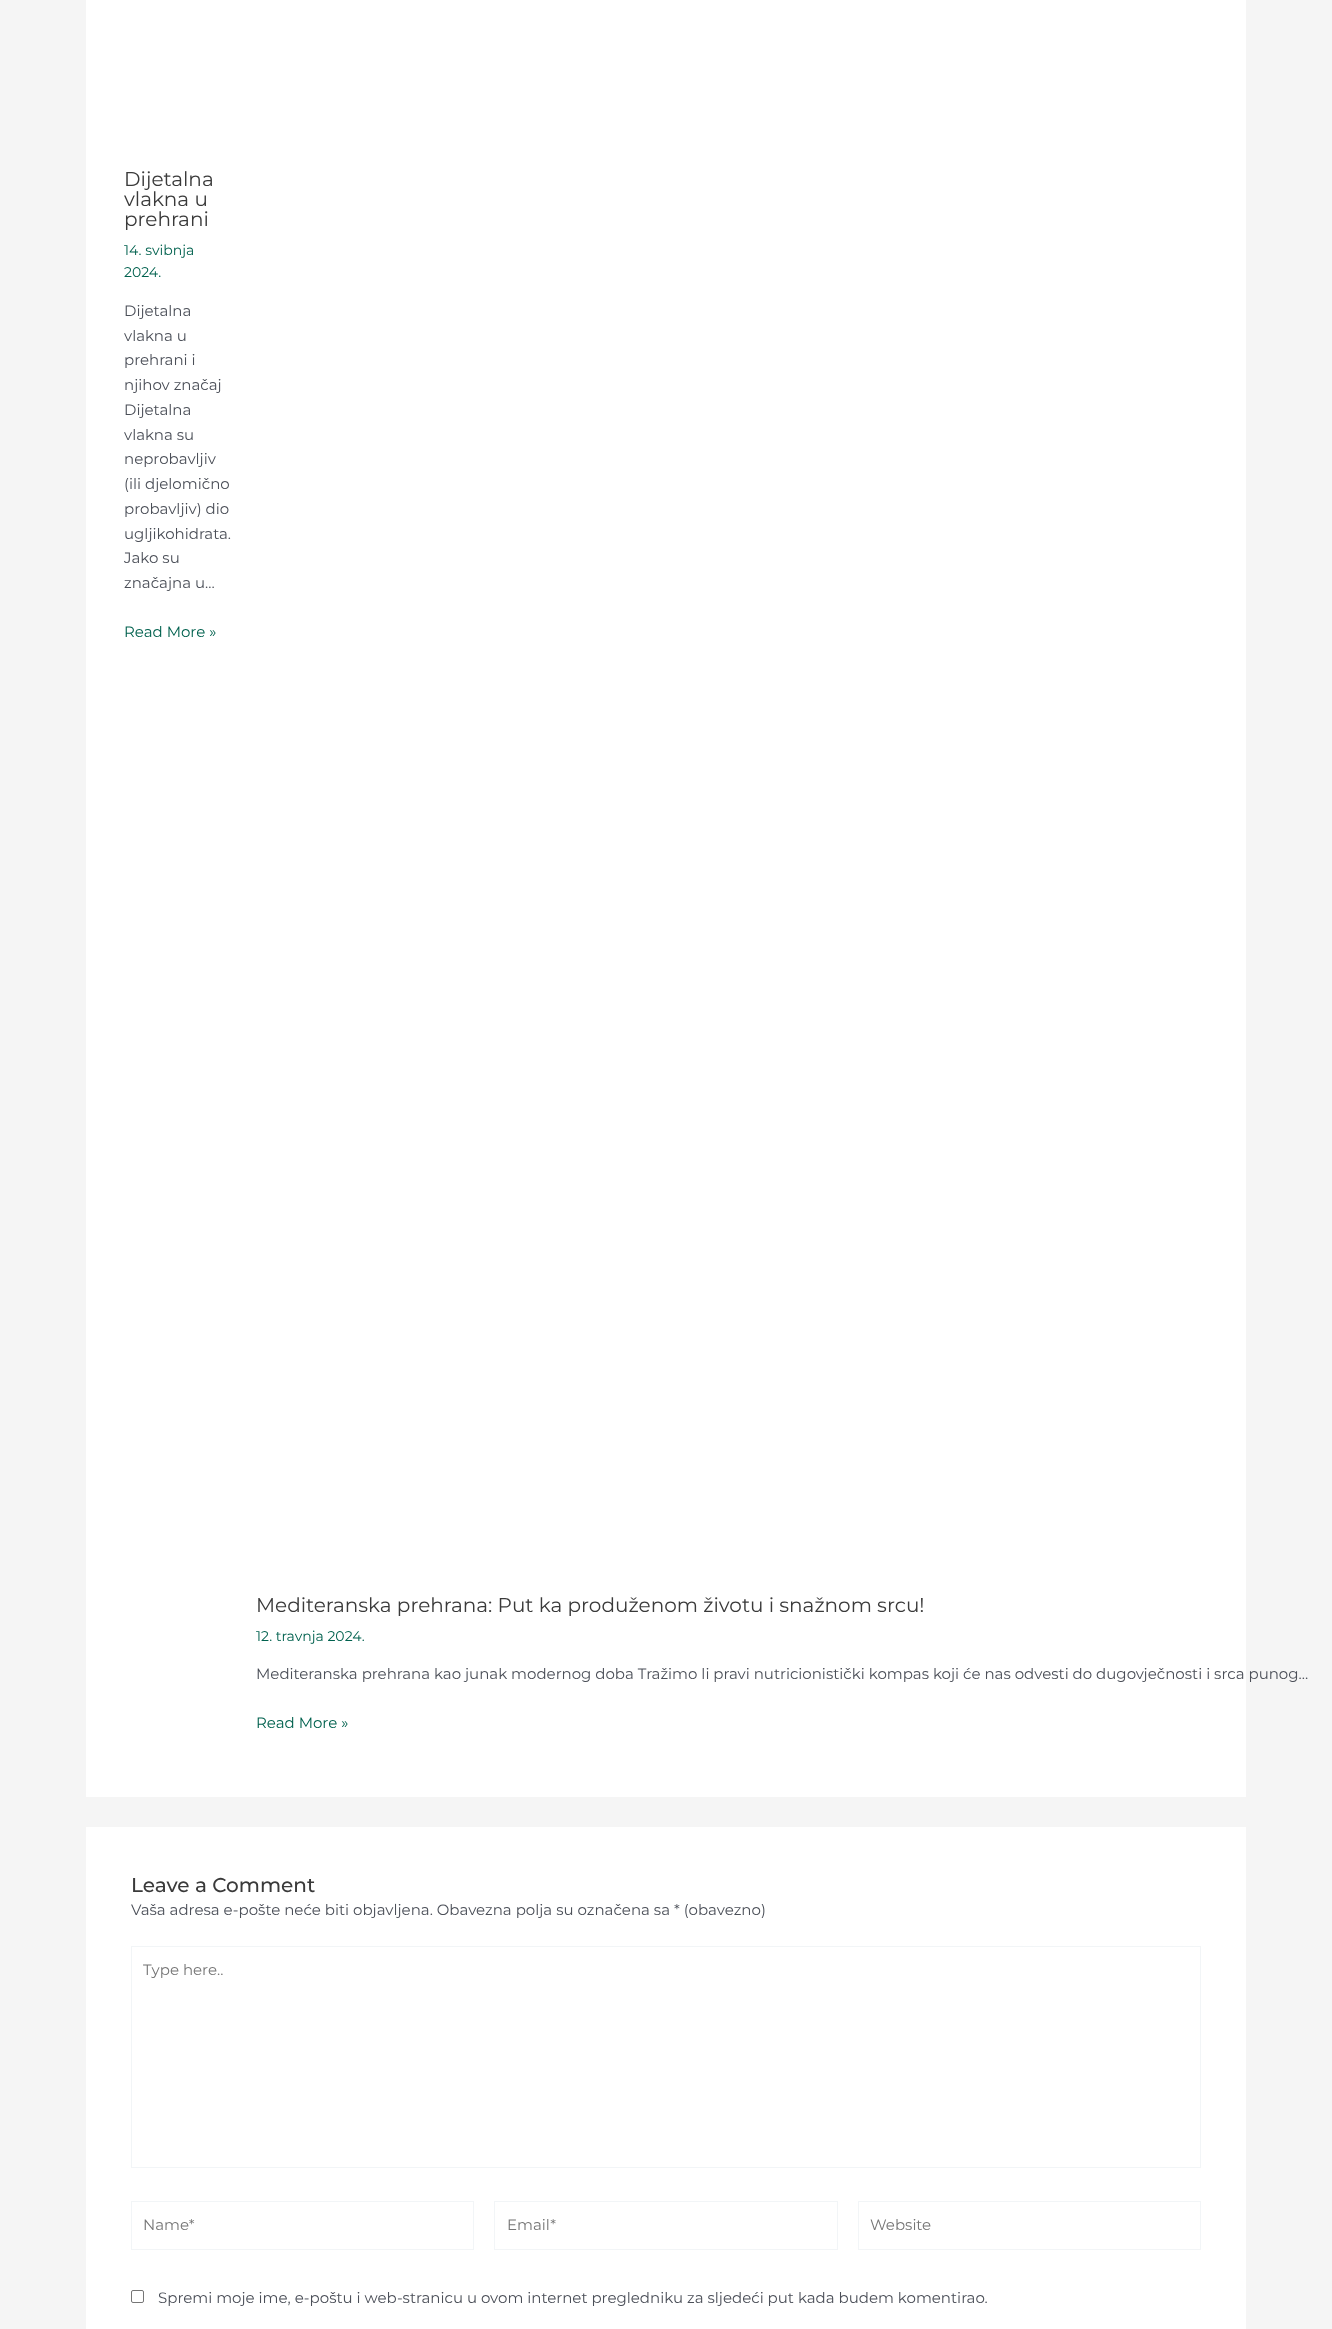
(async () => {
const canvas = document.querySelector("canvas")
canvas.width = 1332
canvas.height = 2329
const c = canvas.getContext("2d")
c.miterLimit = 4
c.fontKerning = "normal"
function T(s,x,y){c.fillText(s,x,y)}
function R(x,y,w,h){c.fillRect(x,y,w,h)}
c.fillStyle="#f5f5f5"
R(0,0,1332,2329)
c.fillStyle="#fff"
R(86,0,1160,1797)
c.font="20px Montserrat"
c.fillStyle="#3a3a3a"
T("Dijetalna",124,186)
T("vlakna u",124,206)
T("prehrani",124,226)
c.font="14px Montserrat"
c.fillStyle="#00614e"
T("14. svibnja",124,255)
T("2024.",124,277)
c.font="15px Montserrat"
c.fillStyle="#4b4f58"
T("Dijetalna",124,316)
T("vlakna u",124,341)
T("prehrani i",124,365)
T("njihov značaj",124,390)
T("Dijetalna",124,415)
T("vlakna su",124,440)
T("neprobavljiv",124,464)
T("(ili djelomično",124,489)
T("probavljiv) dio",124,514)
T("ugljikohidrata.",124,539)
T("Jako su",124,563)
T("značajna u…",124,588)
c.fillStyle="#00614e"
T("Read More »",124,637)
c.font="20px Montserrat"
c.fillStyle="#3a3a3a"
T("Mediteranska prehrana: Put ka produženom životu i snažnom srcu!",256,1612)
c.font="14px Montserrat"
c.fillStyle="#00614e"
T("12. travnja 2024.",256,1641)
c.font="15px Montserrat"
c.fillStyle="#4b4f58"
T("Mediteranska prehrana kao junak modernog doba Tražimo li pravi nutricionistički kompas koji će nas odvesti do dugovječnosti i srca punog…",256,1679)
c.fillStyle="#00614e"
T("Read More »",256,1728)
c.fillStyle="#fff"
R(86,1827,1160,502)
c.font="500 20px Montserrat"
c.fillStyle="#3a3a3a"
T("Leave a Comment",131,1892)
c.font="15px Montserrat"
c.fillStyle="#4b4f58"
T("Vaša adresa e-pošte neće biti objavljena. Obavezna polja su označena sa * (obavezno)",131,1915)
c.strokeStyle="#f2f5f7"
c.strokeRect(131.5,1946.5,1069,221)
c.fillStyle="#757575"
T("Type here..",143,1975)
c.strokeRect(131.5,2201.5,342,48)
T("Name*",143,2230)
c.strokeRect(494.5,2201.5,343,48)
T("Email*",507,2230)
c.strokeRect(858.5,2201.5,342,48)
T("Website",870,2230)
c.beginPath()
c.roundRect(131.5,2290.5,12,12,1.5)
c.strokeStyle="#767676"
c.stroke()
c.fillStyle="#4b4f58"
T("Spremi moje ime, e-poštu i web-stranicu u ovom internet pregledniku za sljedeći put kada budem komentirao.",158,2303)
})()
